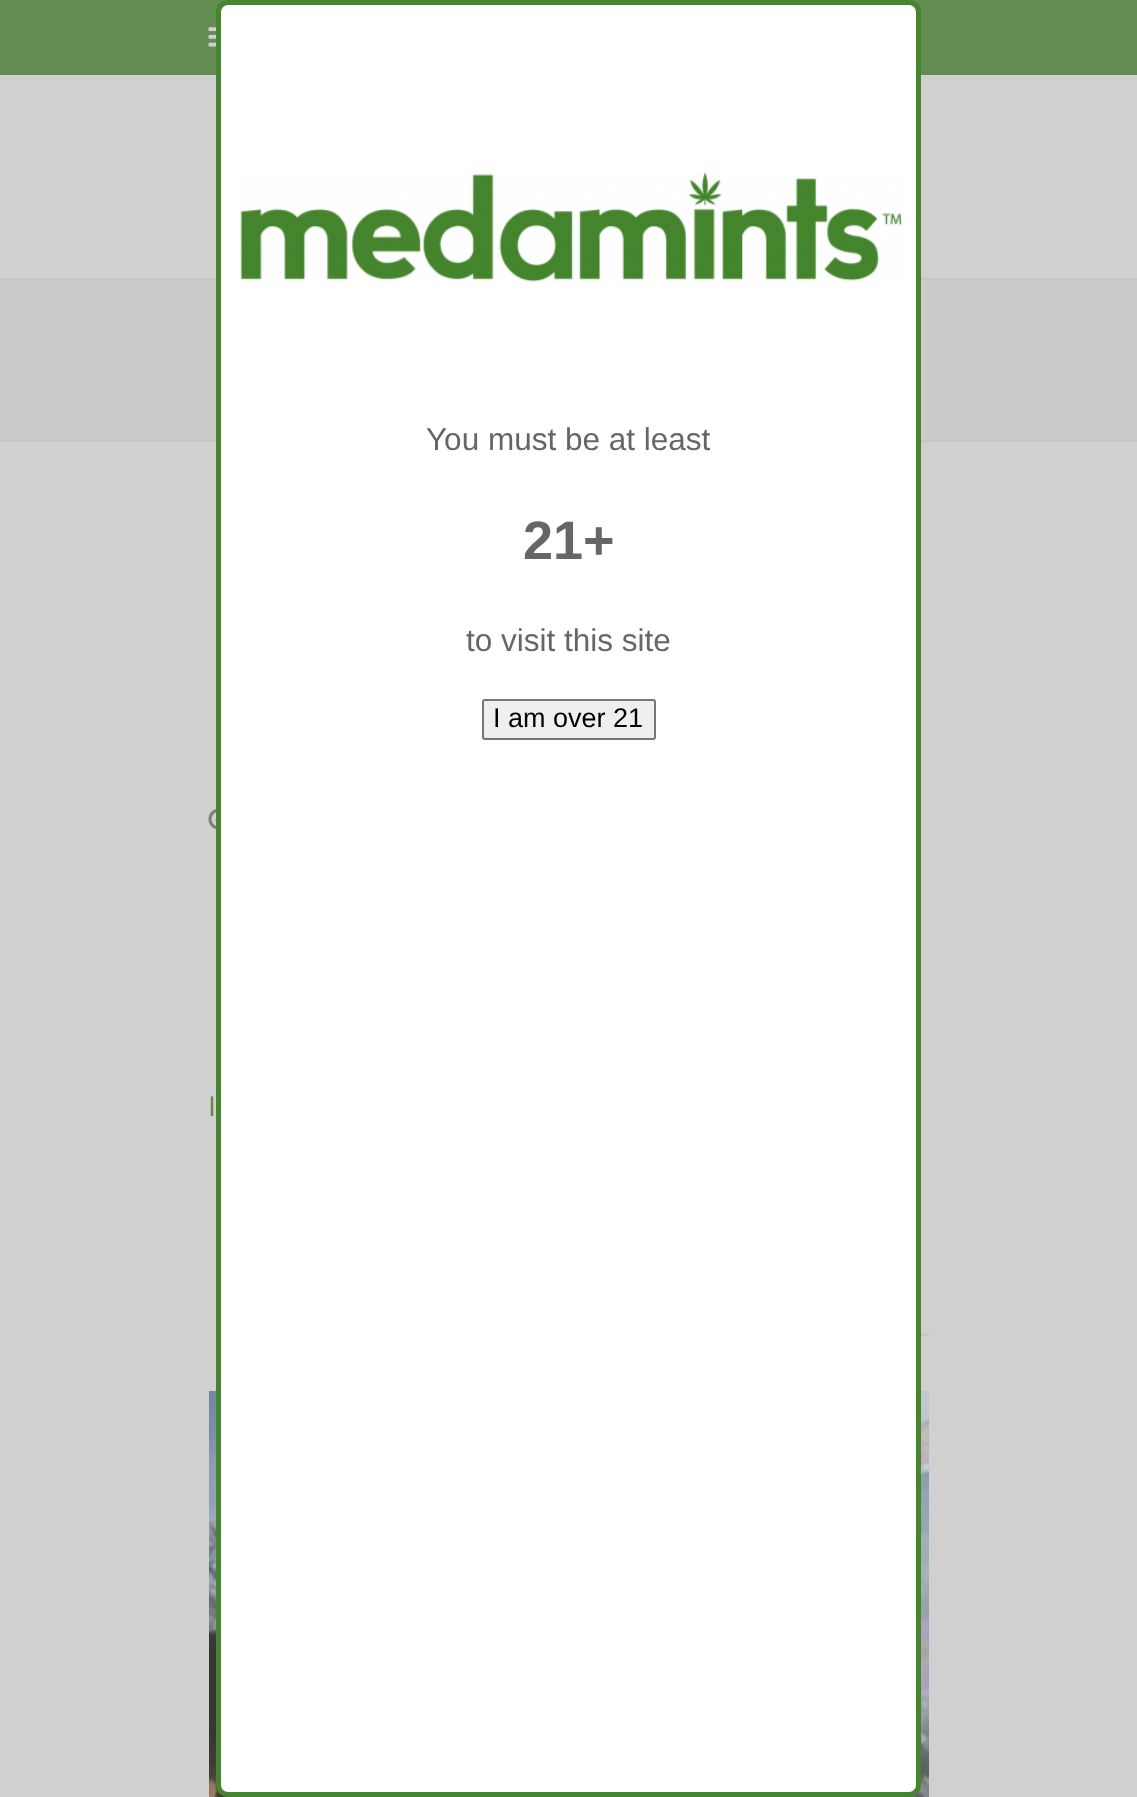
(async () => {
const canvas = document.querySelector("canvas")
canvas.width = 1137
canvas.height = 1797
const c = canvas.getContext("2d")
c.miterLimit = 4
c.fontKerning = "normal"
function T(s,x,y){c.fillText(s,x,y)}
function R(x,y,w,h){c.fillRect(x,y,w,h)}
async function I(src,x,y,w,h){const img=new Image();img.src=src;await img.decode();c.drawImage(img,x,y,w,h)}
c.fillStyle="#d0d0d0"
R(0,0,1137,1797)
c.fillStyle="#628c52"
R(0,0,1137,75)
await I("1.png",208,27,8,20)
c.fillStyle="#cbcbcb"
R(0,280,1137,160)
c.fillStyle="#c6c6c6"
R(0,278,1137,2)
R(0,440,1137,2)
await I("4.png",209,1391,720,406)
c.fillStyle="#fff"
c.beginPath()
c.roundRect(218.5,2.5,700,1792,9.5)
c.fill()
c.strokeStyle="#45852e"
c.lineWidth=5
c.stroke()
await I("2.png",240,172,663,110)
c.font="31.5px Liberation Sans"
c.fillStyle="#666"
T("You must be at least",426,450)
c.font="bold 54px Liberation Sans"
T("21+",523,559)
c.font="31.5px Liberation Sans"
T("to visit this site",466,651)
c.fillStyle="#efefef"
c.beginPath()
c.roundRect(483,700,172,39,2)
c.fill()
c.strokeStyle="#767676"
c.lineWidth=2
c.stroke()
c.font="27px Liberation Sans"
c.fillStyle="#000"
T("I am over 21",493,727)
await I("3.png",208,809,8,21)
c.fillStyle="#5e8c3c"
T("l",209,1116)
c.fillStyle="#c6c6c6"
R(921,1334,8,2)
})()
